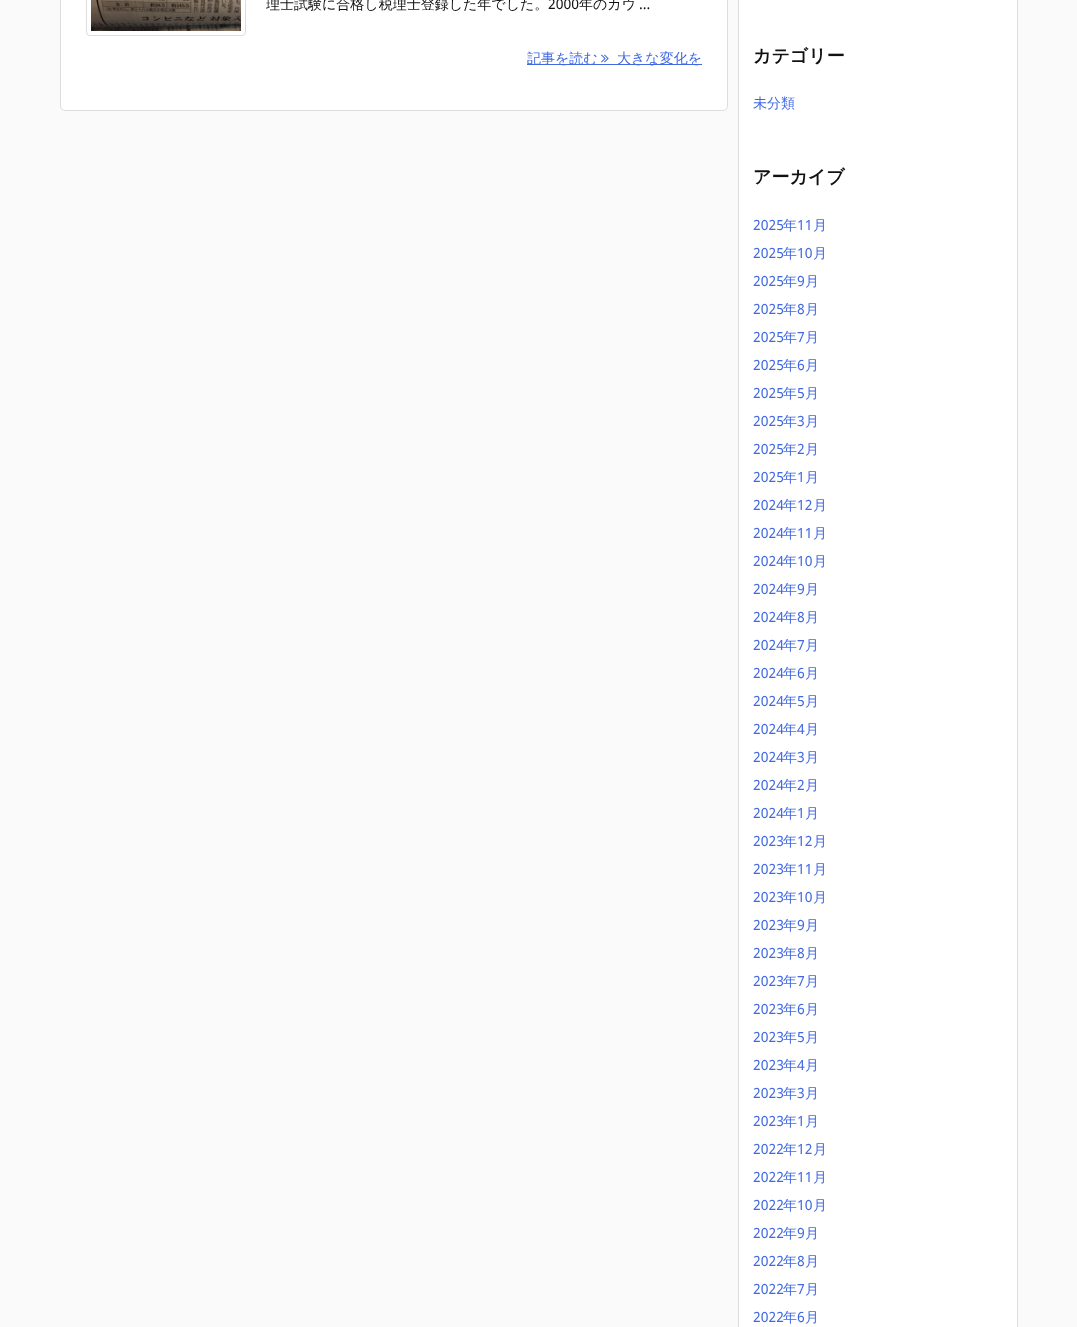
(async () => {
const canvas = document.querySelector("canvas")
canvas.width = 1077
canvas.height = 1327
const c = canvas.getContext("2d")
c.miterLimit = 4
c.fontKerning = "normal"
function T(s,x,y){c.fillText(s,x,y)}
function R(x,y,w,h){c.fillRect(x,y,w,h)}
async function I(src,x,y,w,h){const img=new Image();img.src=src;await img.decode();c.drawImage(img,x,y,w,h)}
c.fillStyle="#fafafa"
R(0,0,1077,1327)
c.fillStyle="#fff"
c.beginPath()
c.roundRect(60.5,-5.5,667,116,4.5)
c.fill()
c.strokeStyle="#ddd"
c.stroke()
c.beginPath()
c.roundRect(86.5,-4.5,159,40,3.5)
c.stroke()
await I("1.png",91,0,150,31)
c.save()
c.beginPath()
c.rect(266,0,436,27)
c.clip()
c.font="500 14px WenQuanYi Zen Hei"
c.fillStyle="#111"
T("理士試験に合格し税理士登録した年でした。",266,9)
c.restore()
c.font="14px Noto Sans"
c.fillStyle="#111"
T("2000",548,9)
c.font="500 14px WenQuanYi Zen Hei"
T("年のカウ",579,9)
c.font="14px Noto Sans"
T("...",639,9)
c.fillStyle="#4169e1"
R(527,64,175,1)
c.font="500 14px WenQuanYi Zen Hei"
T("記事を読む",527,63)
await I("2.png",601,54,8,9)
T("大きな変化を",617,63)
c.fillStyle="#fff"
c.beginPath()
c.rect(738.5,-.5,279,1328)
c.fill()
c.stroke()
c.font="bold 18px WenQuanYi Zen Hei"
c.fillStyle="#111"
T("カテゴリー",753,62)
c.font="500 14px WenQuanYi Zen Hei"
c.fillStyle="#4169e1"
T("未分類",753,108)
c.font="bold 18px WenQuanYi Zen Hei"
c.fillStyle="#111"
T("アーカイブ",753,183)
c.font="14px Noto Sans"
c.fillStyle="#4169e1"
T("2025",753,230)
c.font="500 14px WenQuanYi Zen Hei"
T("年",783,230)
c.font="14px Noto Sans"
T("11",797,230)
c.font="500 14px WenQuanYi Zen Hei"
T("月",813,230)
c.font="14px Noto Sans"
T("2025",753,258)
c.font="500 14px WenQuanYi Zen Hei"
T("年",783,258)
c.font="14px Noto Sans"
T("10",797,258)
c.font="500 14px WenQuanYi Zen Hei"
T("月",813,258)
c.font="14px Noto Sans"
T("2025",753,286)
c.font="500 14px WenQuanYi Zen Hei"
T("年",783,286)
c.font="14px Noto Sans"
T("9",797,286)
c.font="500 14px WenQuanYi Zen Hei"
T("月",805,286)
c.font="14px Noto Sans"
T("2025",753,314)
c.font="500 14px WenQuanYi Zen Hei"
T("年",783,314)
c.font="14px Noto Sans"
T("8",797,314)
c.font="500 14px WenQuanYi Zen Hei"
T("月",805,314)
c.font="14px Noto Sans"
T("2025",753,342)
c.font="500 14px WenQuanYi Zen Hei"
T("年",783,342)
c.font="14px Noto Sans"
T("7",797,342)
c.font="500 14px WenQuanYi Zen Hei"
T("月",805,342)
c.font="14px Noto Sans"
T("2025",753,370)
c.font="500 14px WenQuanYi Zen Hei"
T("年",783,370)
c.font="14px Noto Sans"
T("6",797,370)
c.font="500 14px WenQuanYi Zen Hei"
T("月",805,370)
c.font="14px Noto Sans"
T("2025",753,398)
c.font="500 14px WenQuanYi Zen Hei"
T("年",783,398)
c.font="14px Noto Sans"
T("5",797,398)
c.font="500 14px WenQuanYi Zen Hei"
T("月",805,398)
c.font="14px Noto Sans"
T("2025",753,426)
c.font="500 14px WenQuanYi Zen Hei"
T("年",783,426)
c.font="14px Noto Sans"
T("3",797,426)
c.font="500 14px WenQuanYi Zen Hei"
T("月",805,426)
c.font="14px Noto Sans"
T("2025",753,454)
c.font="500 14px WenQuanYi Zen Hei"
T("年",783,454)
c.font="14px Noto Sans"
T("2",797,454)
c.font="500 14px WenQuanYi Zen Hei"
T("月",805,454)
c.font="14px Noto Sans"
T("2025",753,482)
c.font="500 14px WenQuanYi Zen Hei"
T("年",783,482)
c.font="14px Noto Sans"
T("1",797,482)
c.font="500 14px WenQuanYi Zen Hei"
T("月",805,482)
c.font="14px Noto Sans"
T("2024",753,510)
c.font="500 14px WenQuanYi Zen Hei"
T("年",783,510)
c.font="14px Noto Sans"
T("12",797,510)
c.font="500 14px WenQuanYi Zen Hei"
T("月",813,510)
c.font="14px Noto Sans"
T("2024",753,538)
c.font="500 14px WenQuanYi Zen Hei"
T("年",783,538)
c.font="14px Noto Sans"
T("11",797,538)
c.font="500 14px WenQuanYi Zen Hei"
T("月",813,538)
c.font="14px Noto Sans"
T("2024",753,566)
c.font="500 14px WenQuanYi Zen Hei"
T("年",783,566)
c.font="14px Noto Sans"
T("10",797,566)
c.font="500 14px WenQuanYi Zen Hei"
T("月",813,566)
c.font="14px Noto Sans"
T("2024",753,594)
c.font="500 14px WenQuanYi Zen Hei"
T("年",783,594)
c.font="14px Noto Sans"
T("9",797,594)
c.font="500 14px WenQuanYi Zen Hei"
T("月",805,594)
c.font="14px Noto Sans"
T("2024",753,622)
c.font="500 14px WenQuanYi Zen Hei"
T("年",783,622)
c.font="14px Noto Sans"
T("8",797,622)
c.font="500 14px WenQuanYi Zen Hei"
T("月",805,622)
c.font="14px Noto Sans"
T("2024",753,650)
c.font="500 14px WenQuanYi Zen Hei"
T("年",783,650)
c.font="14px Noto Sans"
T("7",797,650)
c.font="500 14px WenQuanYi Zen Hei"
T("月",805,650)
c.font="14px Noto Sans"
T("2024",753,678)
c.font="500 14px WenQuanYi Zen Hei"
T("年",783,678)
c.font="14px Noto Sans"
T("6",797,678)
c.font="500 14px WenQuanYi Zen Hei"
T("月",805,678)
c.font="14px Noto Sans"
T("2024",753,706)
c.font="500 14px WenQuanYi Zen Hei"
T("年",783,706)
c.font="14px Noto Sans"
T("5",797,706)
c.font="500 14px WenQuanYi Zen Hei"
T("月",805,706)
c.font="14px Noto Sans"
T("2024",753,734)
c.font="500 14px WenQuanYi Zen Hei"
T("年",783,734)
c.font="14px Noto Sans"
T("4",797,734)
c.font="500 14px WenQuanYi Zen Hei"
T("月",805,734)
c.font="14px Noto Sans"
T("2024",753,762)
c.font="500 14px WenQuanYi Zen Hei"
T("年",783,762)
c.font="14px Noto Sans"
T("3",797,762)
c.font="500 14px WenQuanYi Zen Hei"
T("月",805,762)
c.font="14px Noto Sans"
T("2024",753,790)
c.font="500 14px WenQuanYi Zen Hei"
T("年",783,790)
c.font="14px Noto Sans"
T("2",797,790)
c.font="500 14px WenQuanYi Zen Hei"
T("月",805,790)
c.font="14px Noto Sans"
T("2024",753,818)
c.font="500 14px WenQuanYi Zen Hei"
T("年",783,818)
c.font="14px Noto Sans"
T("1",797,818)
c.font="500 14px WenQuanYi Zen Hei"
T("月",805,818)
c.font="14px Noto Sans"
T("2023",753,846)
c.font="500 14px WenQuanYi Zen Hei"
T("年",783,846)
c.font="14px Noto Sans"
T("12",797,846)
c.font="500 14px WenQuanYi Zen Hei"
T("月",813,846)
c.font="14px Noto Sans"
T("2023",753,874)
c.font="500 14px WenQuanYi Zen Hei"
T("年",783,874)
c.font="14px Noto Sans"
T("11",797,874)
c.font="500 14px WenQuanYi Zen Hei"
T("月",813,874)
c.font="14px Noto Sans"
T("2023",753,902)
c.font="500 14px WenQuanYi Zen Hei"
T("年",783,902)
c.font="14px Noto Sans"
T("10",797,902)
c.font="500 14px WenQuanYi Zen Hei"
T("月",813,902)
c.font="14px Noto Sans"
T("2023",753,930)
c.font="500 14px WenQuanYi Zen Hei"
T("年",783,930)
c.font="14px Noto Sans"
T("9",797,930)
c.font="500 14px WenQuanYi Zen Hei"
T("月",805,930)
c.font="14px Noto Sans"
T("2023",753,958)
c.font="500 14px WenQuanYi Zen Hei"
T("年",783,958)
c.font="14px Noto Sans"
T("8",797,958)
c.font="500 14px WenQuanYi Zen Hei"
T("月",805,958)
c.font="14px Noto Sans"
T("2023",753,986)
c.font="500 14px WenQuanYi Zen Hei"
T("年",783,986)
c.font="14px Noto Sans"
T("7",797,986)
c.font="500 14px WenQuanYi Zen Hei"
T("月",805,986)
c.font="14px Noto Sans"
T("2023",753,1014)
c.font="500 14px WenQuanYi Zen Hei"
T("年",783,1014)
c.font="14px Noto Sans"
T("6",797,1014)
c.font="500 14px WenQuanYi Zen Hei"
T("月",805,1014)
c.font="14px Noto Sans"
T("2023",753,1042)
c.font="500 14px WenQuanYi Zen Hei"
T("年",783,1042)
c.font="14px Noto Sans"
T("5",797,1042)
c.font="500 14px WenQuanYi Zen Hei"
T("月",805,1042)
c.font="14px Noto Sans"
T("2023",753,1070)
c.font="500 14px WenQuanYi Zen Hei"
T("年",783,1070)
c.font="14px Noto Sans"
T("4",797,1070)
c.font="500 14px WenQuanYi Zen Hei"
T("月",805,1070)
c.font="14px Noto Sans"
T("2023",753,1098)
c.font="500 14px WenQuanYi Zen Hei"
T("年",783,1098)
c.font="14px Noto Sans"
T("3",797,1098)
c.font="500 14px WenQuanYi Zen Hei"
T("月",805,1098)
c.font="14px Noto Sans"
T("2023",753,1126)
c.font="500 14px WenQuanYi Zen Hei"
T("年",783,1126)
c.font="14px Noto Sans"
T("1",797,1126)
c.font="500 14px WenQuanYi Zen Hei"
T("月",805,1126)
c.font="14px Noto Sans"
T("2022",753,1154)
c.font="500 14px WenQuanYi Zen Hei"
T("年",783,1154)
c.font="14px Noto Sans"
T("12",797,1154)
c.font="500 14px WenQuanYi Zen Hei"
T("月",813,1154)
c.font="14px Noto Sans"
T("2022",753,1182)
c.font="500 14px WenQuanYi Zen Hei"
T("年",783,1182)
c.font="14px Noto Sans"
T("11",797,1182)
c.font="500 14px WenQuanYi Zen Hei"
T("月",813,1182)
c.font="14px Noto Sans"
T("2022",753,1210)
c.font="500 14px WenQuanYi Zen Hei"
T("年",783,1210)
c.font="14px Noto Sans"
T("10",797,1210)
c.font="500 14px WenQuanYi Zen Hei"
T("月",813,1210)
c.font="14px Noto Sans"
T("2022",753,1238)
c.font="500 14px WenQuanYi Zen Hei"
T("年",783,1238)
c.font="14px Noto Sans"
T("9",797,1238)
c.font="500 14px WenQuanYi Zen Hei"
T("月",805,1238)
c.font="14px Noto Sans"
T("2022",753,1266)
c.font="500 14px WenQuanYi Zen Hei"
T("年",783,1266)
c.font="14px Noto Sans"
T("8",797,1266)
c.font="500 14px WenQuanYi Zen Hei"
T("月",805,1266)
c.font="14px Noto Sans"
T("2022",753,1294)
c.font="500 14px WenQuanYi Zen Hei"
T("年",783,1294)
c.font="14px Noto Sans"
T("7",797,1294)
c.font="500 14px WenQuanYi Zen Hei"
T("月",805,1294)
c.font="14px Noto Sans"
T("2022",753,1322)
c.font="500 14px WenQuanYi Zen Hei"
T("年",783,1322)
c.font="14px Noto Sans"
T("6",797,1322)
c.font="500 14px WenQuanYi Zen Hei"
T("月",805,1322)
})()
